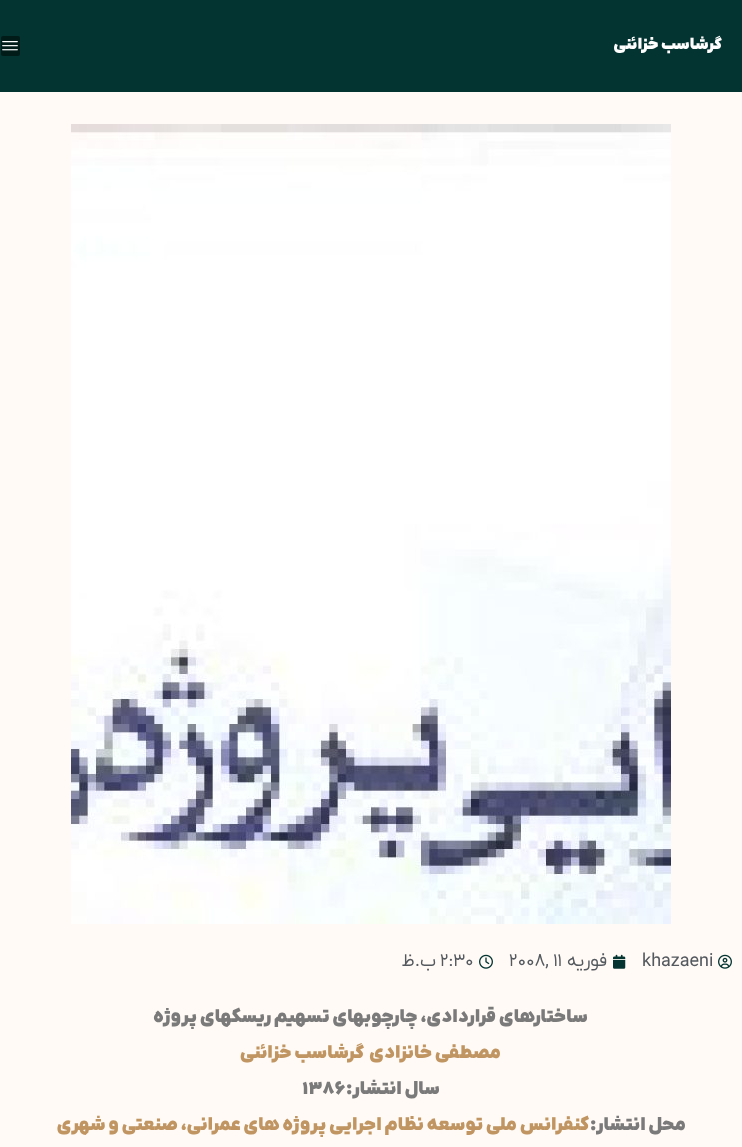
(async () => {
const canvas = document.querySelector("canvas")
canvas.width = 742
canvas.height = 1147
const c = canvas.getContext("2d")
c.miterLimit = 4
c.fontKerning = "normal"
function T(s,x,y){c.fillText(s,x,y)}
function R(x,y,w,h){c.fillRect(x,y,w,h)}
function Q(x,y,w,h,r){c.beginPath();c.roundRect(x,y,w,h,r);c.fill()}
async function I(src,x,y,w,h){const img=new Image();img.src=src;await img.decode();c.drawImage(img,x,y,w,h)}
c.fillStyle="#fffaf5"
R(0,0,742,1147)
c.fillStyle="#033431"
R(0,0,742,92)
c.direction="rtl"
c.font="800 15.75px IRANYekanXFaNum"
c.fillStyle="#fff"
T("گرشاسب خزائنی",722,49)
c.fillStyle="#011b19"
Q(1,36,19,20,2)
await I("1.png",2,41,16,10)
await I("2.png",71,124,600,800)
await I("3.png",718,954,14,15)
c.direction="ltr"
c.font="18px IRANYekanXFaNum"
c.fillStyle="#54595f"
T("khazaeni",642,966)
await I("4.png",613,954,13,15)
c.direction="rtl"
T("فوریه",607,966)
c.direction="ltr"
T("2008, 11",509,966)
await I("5.png",479,954,14,15)
T("2:30",440,966)
c.direction="rtl"
T("ب.ظ",436,966)
c.font="800 18px IRANYekanXFaNum"
c.fillStyle="#7a7a7a"
T("ساختارهای قراردادی، چارچوبهای تسهیم ریسکهای پروژه",588,1022)
c.fillStyle="#c09562"
T("مصطفی خانزادی",501,1058)
T("گرشاسب خزائنی",364,1058)
c.fillStyle="#7a7a7a"
T("سال انتشار:",440,1094)
c.direction="ltr"
T("۱۳۸۶",302,1094)
c.direction="rtl"
T("محل انتشار:",686,1130)
c.fillStyle="#c09562"
T("کنفرانس ملی توسعه نظام اجرایی پروژه های عمرانی، صنعتی و شهری",589,1130)
})()
